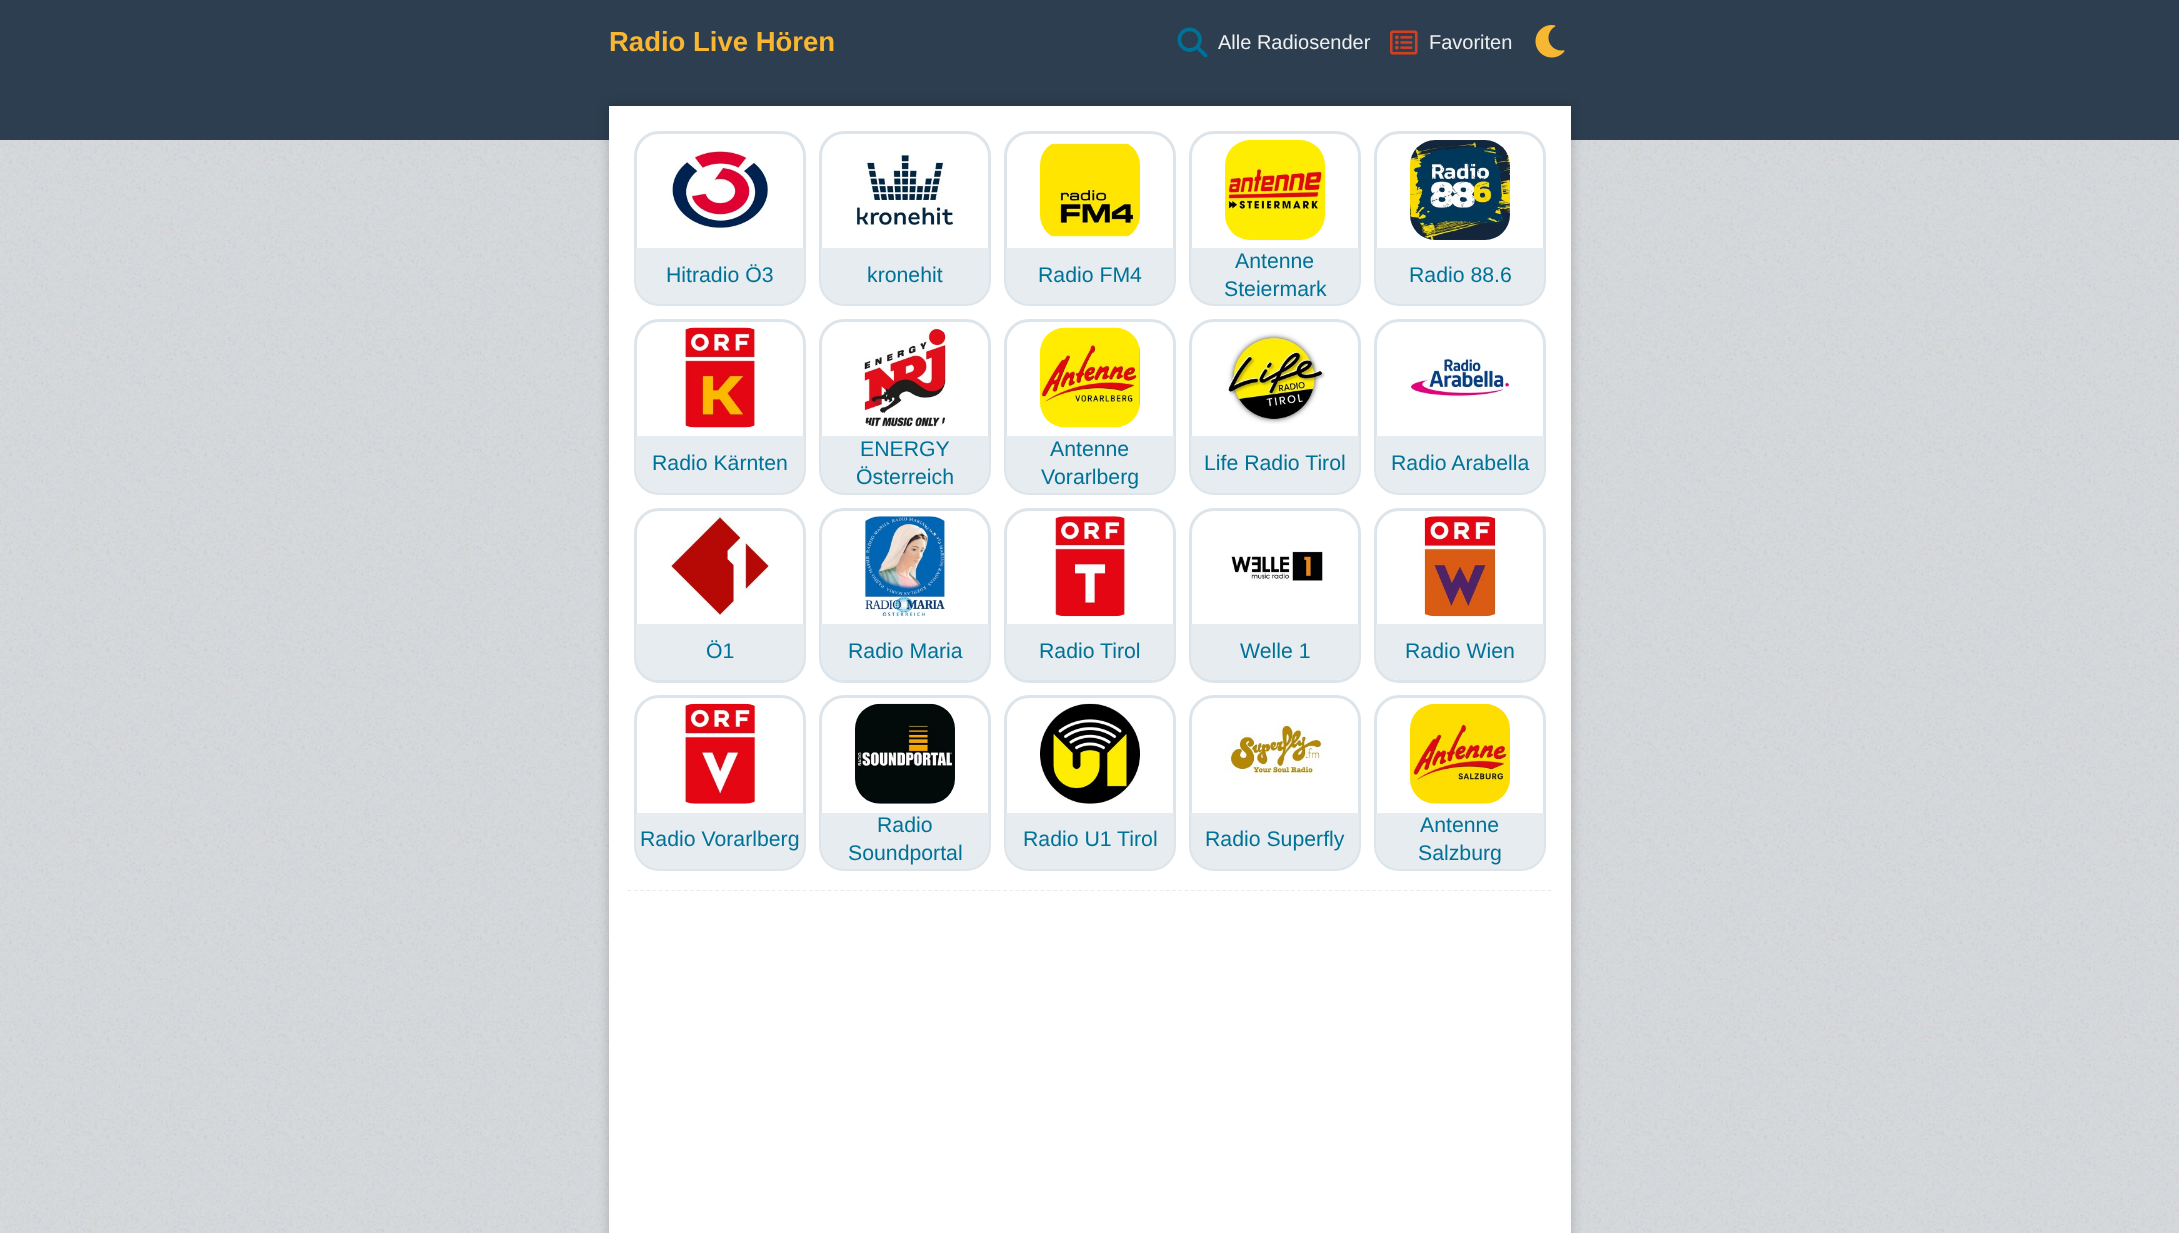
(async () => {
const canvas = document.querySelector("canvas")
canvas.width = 2179
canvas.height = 1233
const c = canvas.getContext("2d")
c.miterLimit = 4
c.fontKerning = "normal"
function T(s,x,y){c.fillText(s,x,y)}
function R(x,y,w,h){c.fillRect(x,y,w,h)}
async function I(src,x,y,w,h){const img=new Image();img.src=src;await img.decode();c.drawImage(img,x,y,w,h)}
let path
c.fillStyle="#fff"
R(0,0,2179,1233)
await I("1.png",0,140,2179,1093)
c.fillStyle="#2c3e50"
R(0,0,2179,140)
c.font="bold 27.5px Liberation Sans"
c.fillStyle="#f8b732"
T("Radio Live Hören",609,51)
await I("2.png",1177,27,31,31)
c.font="20px Liberation Sans"
c.fillStyle="#efefef"
T("Alle Radiosender",1218,49)
await I("3.png",1390,30,28,25)
T("Favoriten",1429,49)
await I("4.png",1535,25,30,33)
c.fillStyle="#00000033"
c.filter="blur(6px)"
c.beginPath()
c.rect(609,106,962,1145)
c.fill()
c.filter="none"
c.fillStyle="#fff"
R(609,106,962,1127)
c.beginPath()
c.roundRect(635.5,132.5,169,172,23.5)
c.strokeStyle="#dee5ea"
c.lineWidth=3
c.stroke()
await I("5.png",670,150,100,79)
c.fillStyle="#e6ecef"
c.beginPath()
c.roundRect(636,248,168,56,[0,0,23,23])
c.fill()
c.font="21.25px Liberation Sans"
c.fillStyle="#007298"
T("Hitradio Ö3",666,282)
c.beginPath()
c.roundRect(820.5,132.5,169,172,23.5)
c.stroke()
await I("6.png",855,152,100,78)
c.fillStyle="#e6ecef"
c.beginPath()
c.roundRect(821,248,168,56,[0,0,23,23])
c.fill()
c.fillStyle="#007298"
T("kronehit",867,282)
c.beginPath()
c.roundRect(1005.5,132.5,169,172,23.5)
c.stroke()
await I("7.png",1040,143,100,94)
c.fillStyle="#e6ecef"
c.beginPath()
c.roundRect(1006,248,168,56,[0,0,23,23])
c.fill()
c.fillStyle="#007298"
T("Radio FM4",1038,282)
c.beginPath()
c.roundRect(1190.5,132.5,169,172,23.5)
c.stroke()
await I("8.png",1225,140,100,100)
c.fillStyle="#e6ecef"
c.beginPath()
c.roundRect(1191,248,168,56,[0,0,23,23])
c.fill()
c.fillStyle="#007298"
T("Antenne",1235,268)
T("Steiermark",1224,296)
c.beginPath()
c.roundRect(1375.5,132.5,169,172,23.5)
c.stroke()
await I("9.png",1410,140,100,100)
c.fillStyle="#e6ecef"
c.beginPath()
c.roundRect(1376,248,168,56,[0,0,23,23])
c.fill()
c.fillStyle="#007298"
T("Radio 88.6",1409,282)
c.beginPath()
c.roundRect(635.5,320.5,169,173,23.5)
c.stroke()
await I("10.png",680,327,80,101)
c.fillStyle="#e6ecef"
c.beginPath()
c.roundRect(636,436,168,57,[0,0,23,23])
c.fill()
c.fillStyle="#007298"
T("Radio Kärnten",652,470)
c.beginPath()
c.roundRect(820.5,320.5,169,173,23.5)
c.stroke()
await I("11.png",863,328,84,99)
c.fillStyle="#e6ecef"
c.beginPath()
c.roundRect(821,436,168,57,[0,0,23,23])
c.fill()
c.fillStyle="#007298"
T("ENERGY",860,456)
T("Österreich",856,484)
c.beginPath()
c.roundRect(1005.5,320.5,169,173,23.5)
c.stroke()
await I("12.png",1040,327,100,101)
c.fillStyle="#e6ecef"
c.beginPath()
c.roundRect(1006,436,168,57,[0,0,23,23])
c.fill()
c.fillStyle="#007298"
T("Antenne",1050,456)
T("Vorarlberg",1041,484)
c.beginPath()
c.roundRect(1190.5,320.5,169,173,23.5)
c.stroke()
await I("13.png",1225,332,100,92)
c.fillStyle="#e6ecef"
c.beginPath()
c.roundRect(1191,436,168,57,[0,0,23,23])
c.fill()
c.fillStyle="#007298"
T("Life Radio Tirol",1204,470)
c.beginPath()
c.roundRect(1375.5,320.5,169,173,23.5)
c.stroke()
await I("14.png",1410,357,100,41)
c.fillStyle="#e6ecef"
c.beginPath()
c.roundRect(1376,436,168,57,[0,0,23,23])
c.fill()
c.fillStyle="#007298"
T("Radio Arabella",1391,470)
c.beginPath()
c.roundRect(635.5,509.5,169,172,23.5)
c.stroke()
await I("15.png",670,516,100,100)
c.fillStyle="#e6ecef"
c.beginPath()
c.roundRect(636,624,168,56,[0,0,23,23])
c.fill()
c.fillStyle="#007298"
T("Ö1",706,658)
c.beginPath()
c.roundRect(820.5,509.5,169,172,23.5)
c.stroke()
await I("16.png",864,516,82,101)
c.fillStyle="#e6ecef"
c.beginPath()
c.roundRect(821,624,168,56,[0,0,23,23])
c.fill()
c.fillStyle="#007298"
T("Radio Maria",848,658)
c.beginPath()
c.roundRect(1005.5,509.5,169,172,23.5)
c.stroke()
await I("17.png",1050,516,80,101)
c.fillStyle="#e6ecef"
c.beginPath()
c.roundRect(1006,624,168,56,[0,0,23,23])
c.fill()
c.fillStyle="#007298"
T("Radio Tirol",1039,658)
c.beginPath()
c.roundRect(1190.5,509.5,169,172,23.5)
c.stroke()
await I("18.png",1231,551,92,30)
c.fillStyle="#e6ecef"
c.beginPath()
c.roundRect(1191,624,168,56,[0,0,23,23])
c.fill()
c.fillStyle="#007298"
T("Welle 1",1240,658)
c.beginPath()
c.roundRect(1375.5,509.5,169,172,23.5)
c.stroke()
await I("19.png",1420,516,80,101)
c.fillStyle="#e6ecef"
c.beginPath()
c.roundRect(1376,624,168,56,[0,0,23,23])
c.fill()
c.fillStyle="#007298"
T("Radio Wien",1405,658)
c.beginPath()
c.roundRect(635.5,696.5,169,173,23.5)
c.stroke()
await I("20.png",681,703,79,101)
c.fillStyle="#e6ecef"
c.beginPath()
c.roundRect(636,813,168,56,[0,0,23,23])
c.fill()
c.fillStyle="#007298"
T("Radio Vorarlberg",640,846)
c.beginPath()
c.roundRect(820.5,696.5,169,173,23.5)
c.stroke()
await I("21.png",855,703,100,101)
c.fillStyle="#e6ecef"
c.beginPath()
c.roundRect(821,813,168,56,[0,0,23,23])
c.fill()
c.fillStyle="#007298"
T("Radio",877,832)
T("Soundportal",848,860)
c.beginPath()
c.roundRect(1005.5,696.5,169,173,23.5)
c.stroke()
await I("22.png",1040,703,100,101)
c.fillStyle="#e6ecef"
c.beginPath()
c.roundRect(1006,813,168,56,[0,0,23,23])
c.fill()
c.fillStyle="#007298"
T("Radio U1 Tirol",1023,846)
c.beginPath()
c.roundRect(1190.5,696.5,169,173,23.5)
c.stroke()
await I("23.png",1225,723,100,51)
c.fillStyle="#e6ecef"
c.beginPath()
c.roundRect(1191,813,168,56,[0,0,23,23])
c.fill()
c.fillStyle="#007298"
T("Radio Superfly",1205,846)
c.beginPath()
c.roundRect(1375.5,696.5,169,173,23.5)
c.stroke()
await I("24.png",1410,703,100,101)
c.fillStyle="#e6ecef"
c.beginPath()
c.roundRect(1376,813,168,56,[0,0,23,23])
c.fill()
c.fillStyle="#007298"
T("Antenne",1420,832)
T("Salzburg",1418,860)
path = new Path2D("M627.5 890.5h925")
c.strokeStyle="#e6ecef"
c.lineWidth=1.2
c.setLineDash([3.75,2.51])
c.stroke(path)
})()
